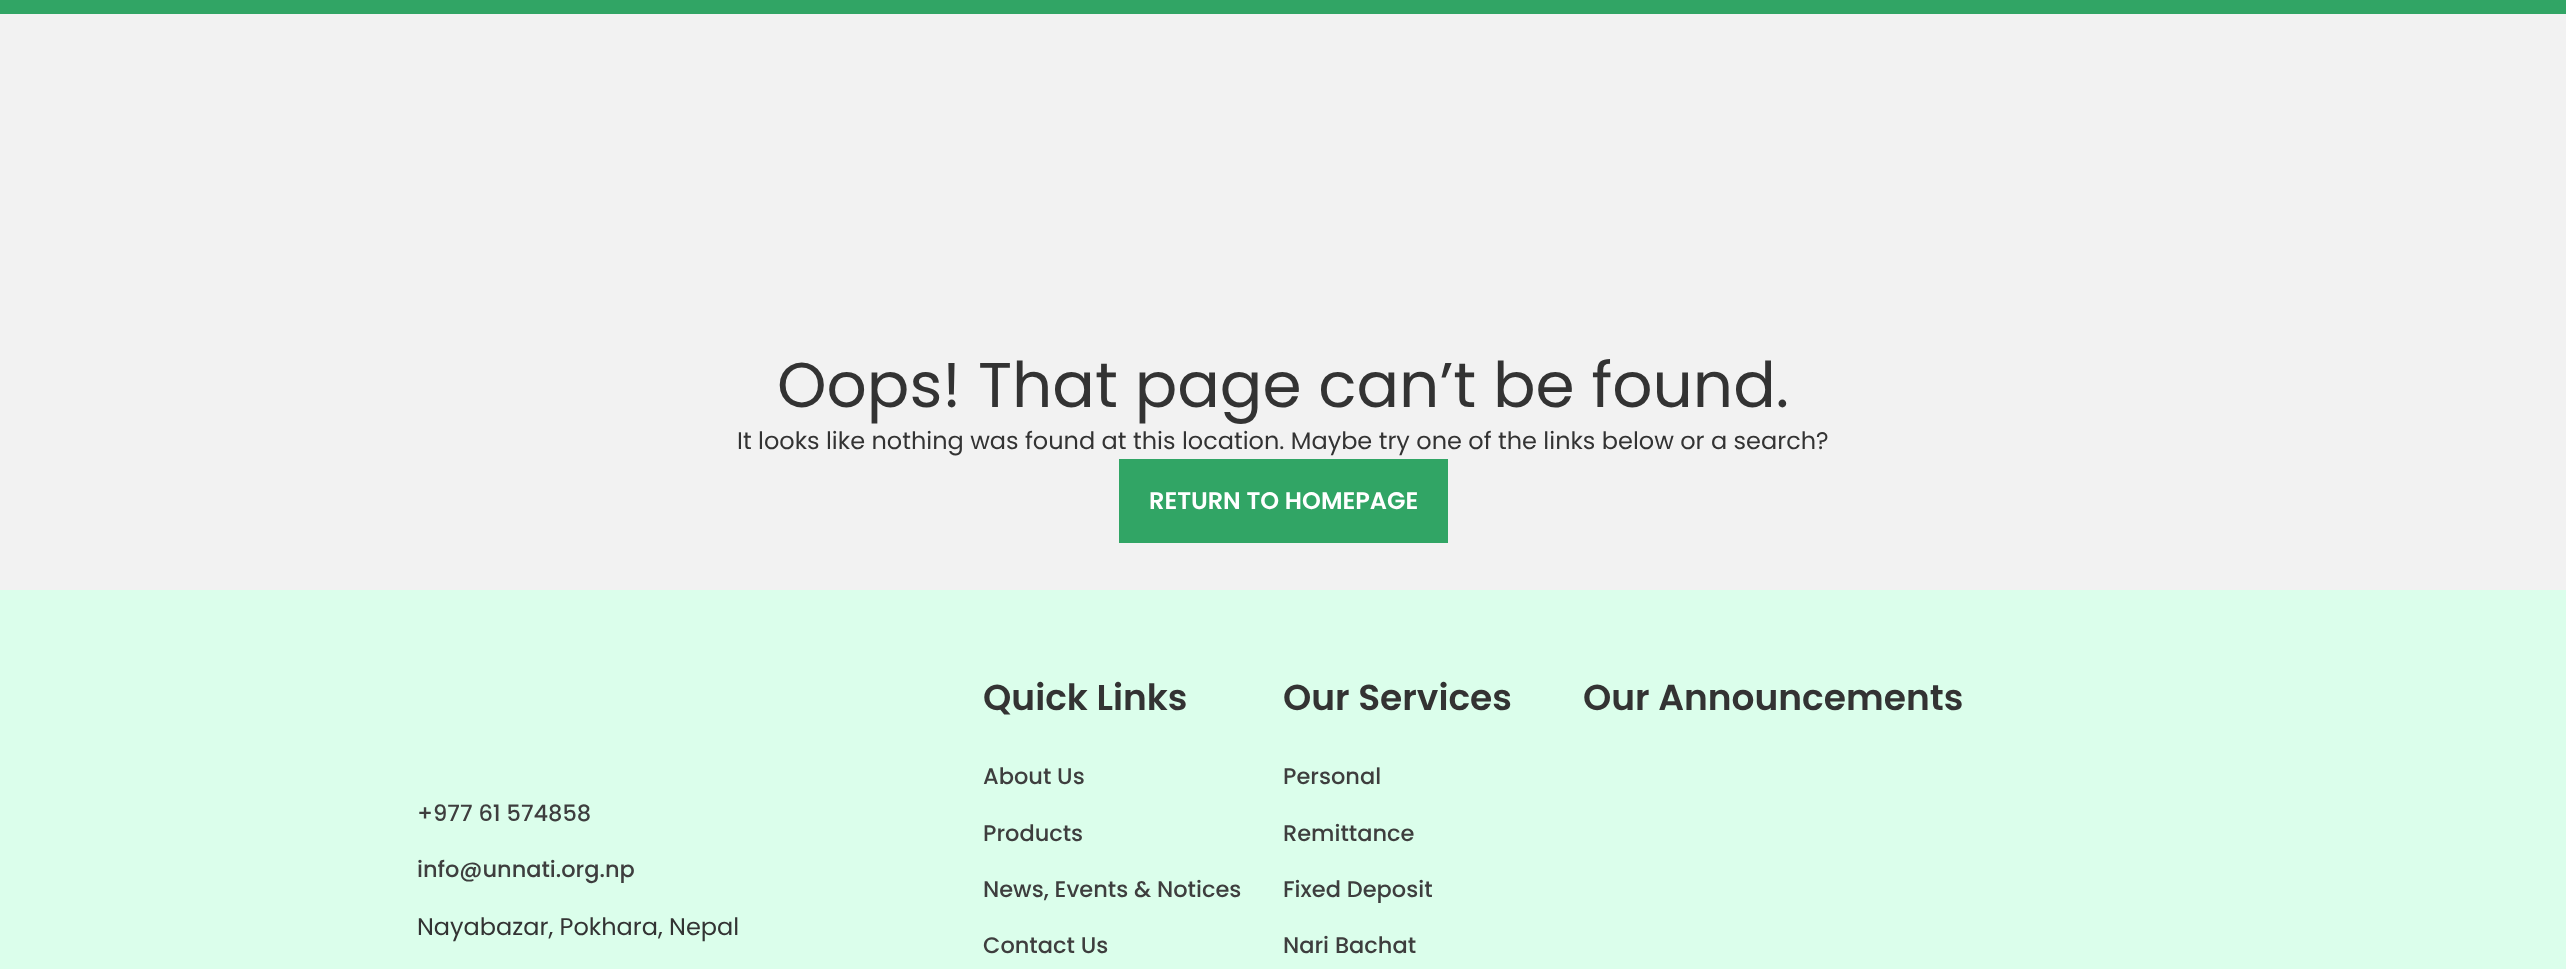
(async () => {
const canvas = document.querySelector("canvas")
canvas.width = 2566
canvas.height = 969
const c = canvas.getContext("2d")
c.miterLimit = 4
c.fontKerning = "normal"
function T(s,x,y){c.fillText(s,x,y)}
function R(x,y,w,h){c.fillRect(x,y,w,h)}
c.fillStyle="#f2f2f2"
R(0,0,2566,969)
c.fillStyle="#31a565"
R(0,0,2566,14)
c.font="63px Poppins"
c.fillStyle="#333"
T("Oops! That page can’t be found.",777,407)
c.font="24px Poppins"
T("It looks like nothing was found at this location. Maybe try one of the links below or a search?",737,449)
c.fillStyle="#31a565"
R(1119,459,329,84)
c.font="600 24px Poppins"
c.fillStyle="#fff"
T("RETURN TO HOMEPAGE",1149,509)
c.fillStyle="#dbfeeb"
R(0,590,2566,379)
c.font="600 36px Poppins"
c.fillStyle="#333"
T("Quick Links",983,710)
c.font="500 22.5px Poppins"
c.fillStyle="#3e3e3e"
T("About Us",983,784)
T("Products",983,841)
T("News, Events & Notices",983,897)
T("Contact Us",983,953)
c.font="600 36px Poppins"
c.fillStyle="#333"
T("Our Services",1283,710)
c.font="500 22.5px Poppins"
c.fillStyle="#3e3e3e"
T("Personal",1283,784)
T("Remittance",1283,841)
T("Fixed Deposit",1283,897)
T("Nari Bachat",1283,953)
c.font="600 36px Poppins"
c.fillStyle="#333"
T("Our Announcements",1583,710)
c.font="500 22.5px Poppins"
c.fillStyle="#3e3e3e"
T("+977 61 574858",417,821)
T("info@unnati.org.np",417,877)
c.font="24px Poppins"
c.fillStyle="#333"
T("Nayabazar, Pokhara, Nepal",417,935)
})()
